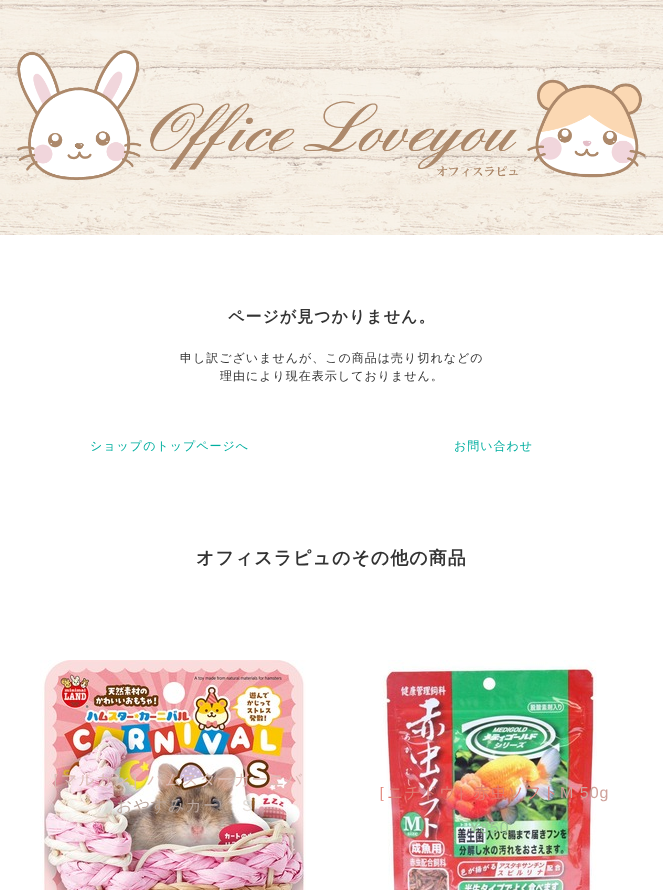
(async () => {
const canvas = document.querySelector("canvas")
canvas.width = 663
canvas.height = 890
const c = canvas.getContext("2d")
c.miterLimit = 4
c.fontKerning = "normal"
function T(s,x,y){c.fillText(s,x,y)}
function R(x,y,w,h){c.fillRect(x,y,w,h)}
async function I(src,x,y,w,h){const img=new Image();img.src=src;await img.decode();c.drawImage(img,x,y,w,h)}
c.fillStyle="#fff"
R(0,0,663,890)
await I("1.png",0,0,663,235)
await I("2.png",17,50,629,130)
c.letterSpacing="1px"
c.font="bold 16px WenQuanYi Zen Hei"
c.fillStyle="#333"
T("ページが見つかりません。",228,322)
c.font="500 12px WenQuanYi Zen Hei"
T("申し訳ございませんが、この商品は売り切れなどの",180,362)
T("理由により現在表示しておりません。",220,380)
c.fillStyle="#00ae9f"
T("ショップのトップページへ",90,450)
T("お問い合わせ",454,450)
c.font="bold 18px WenQuanYi Zen Hei"
c.fillStyle="#333"
T("オフィスラピュのその他の商品",196,564)
await I("3.png",40,660,266,230)
c.font="500 16px WenQuanYi Zen Hei"
c.fillStyle="#dbbdb6"
T("［マルカン］ハムスターカーニバ",44,785)
c.fillStyle="#b9a69d"
T("おやすみカー",116,811)
c.font="16px Liberation Sans"
c.fillStyle="#e7e1dc"
T("S",242,811)
await I("4.png",380,660,217,230)
c.font="500 16px WenQuanYi Zen Hei"
c.fillStyle="#df7f74"
T("［ニチドウ］赤虫ソフト",370,798)
c.font="16px Liberation Sans"
c.fillStyle="#cfa29b"
T("M 50g",560,798)
c.fillStyle="#99c79a"
T("¥850",470,833)
})()
